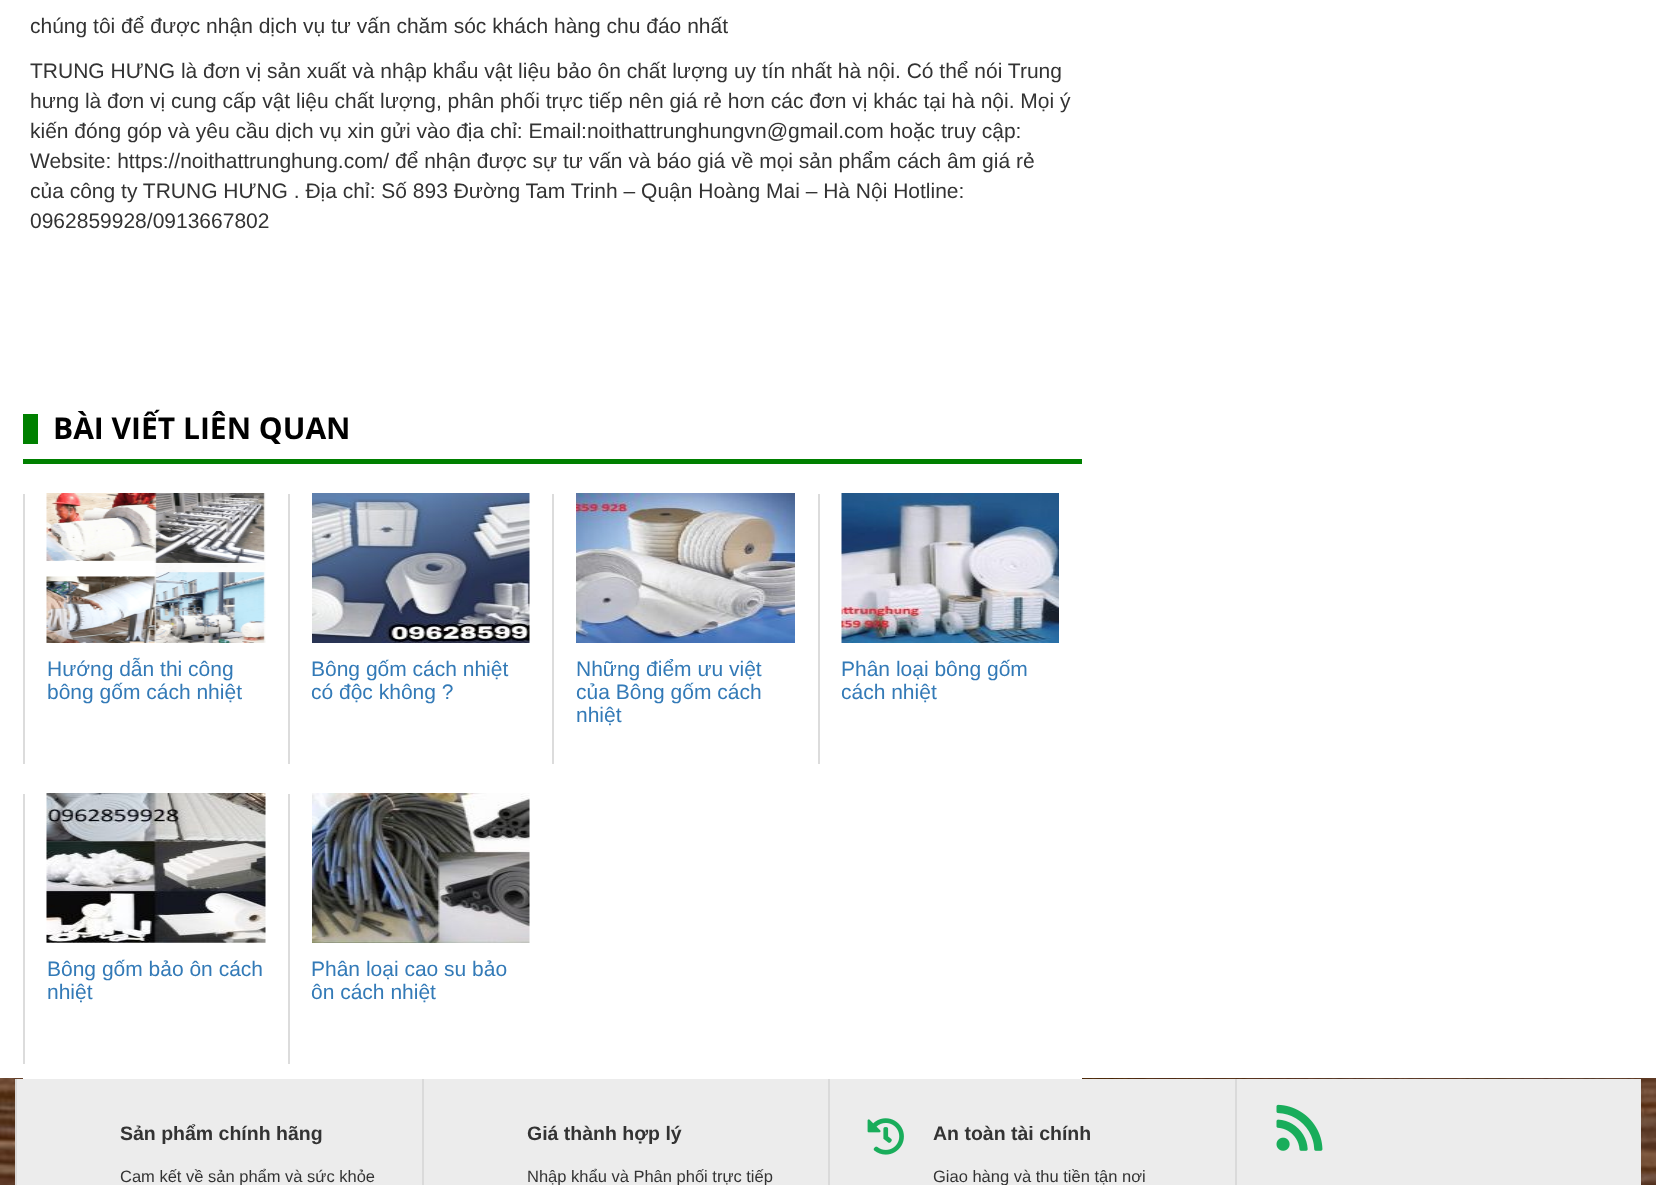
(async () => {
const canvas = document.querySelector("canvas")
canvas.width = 1656
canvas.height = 1185
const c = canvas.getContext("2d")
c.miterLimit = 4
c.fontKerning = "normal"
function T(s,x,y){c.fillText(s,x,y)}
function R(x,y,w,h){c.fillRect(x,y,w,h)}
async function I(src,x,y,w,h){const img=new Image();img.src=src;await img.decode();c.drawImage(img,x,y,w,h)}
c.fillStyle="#fff"
R(0,0,1656,1185)
await I("7.png",0,1078,1656,107)
R(23,1078,1059,1)
c.font="21px Liberation Sans"
c.fillStyle="#333"
T("chúng tôi để được nhận dịch vụ tư vấn chăm sóc khách hàng chu đáo nhất",30,33)
T("TRUNG HƯNG là đơn vị sản xuất và nhập khẩu vật liệu bảo ôn chất lượng uy tín nhất hà nội. Có thể nói Trung",30,78)
T("hưng là đơn vị cung cấp vật liệu chất lượng, phân phối trực tiếp nên giá rẻ hơn các đơn vị khác tại hà nội. Mọi ý",30,108)
T("kiến đóng góp và yêu cầu dịch vụ xin gửi vào địa chỉ: Email:noithattrunghungvn@gmail.com hoặc truy cập:",30,138)
T("Website: https://noithattrunghung.com/ để nhận được sự tư vấn và báo giá về mọi sản phẩm cách âm giá rẻ",30,168)
T("của công ty TRUNG HƯNG . Địa chỉ: Số 893 Đường Tam Trinh – Quận Hoàng Mai – Hà Nội Hotline:",30,198)
T("0962859928/0913667802",30,228)
c.fillStyle="#008000"
R(23,459,1059,5)
R(23,414,15,30)
c.font="bold 30px Open Sans"
c.fillStyle="#000"
T("BÀI VIẾT LIÊN QUAN",53,439)
c.fillStyle="#dcdcdc"
R(23,494,2,270)
await I("1.png",46,493,220,150)
c.font="21px Liberation Sans"
c.fillStyle="#337ab7"
T("Hướng dẫn thi công",47,676)
T("bông gốm cách nhiệt",47,699)
c.fillStyle="#dcdcdc"
R(288,494,2,270)
await I("2.png",312,493,218,150)
c.fillStyle="#337ab7"
T("Bông gốm cách nhiệt",311,676)
T("có độc không ?",311,699)
c.fillStyle="#dcdcdc"
R(552,494,2,270)
await I("3.png",576,493,219,150)
c.fillStyle="#337ab7"
T("Những điểm ưu việt",576,676)
T("của Bông gốm cách",576,699)
T("nhiệt",576,722)
c.fillStyle="#dcdcdc"
R(818,494,2,270)
await I("4.png",841,493,218,150)
c.fillStyle="#337ab7"
T("Phân loại bông gốm",841,676)
T("cách nhiệt",841,699)
c.fillStyle="#dcdcdc"
R(23,794,2,270)
await I("5.png",46,793,220,150)
c.fillStyle="#337ab7"
T("Bông gốm bảo ôn cách",47,976)
T("nhiệt",47,999)
c.fillStyle="#dcdcdc"
R(288,794,2,270)
await I("6.png",312,793,218,150)
c.fillStyle="#337ab7"
T("Phân loại cao su bảo",311,976)
T("ôn cách nhiệt",311,999)
c.fillStyle="#ececec"
R(17,1079,405,106)
c.fillStyle="#dadada"
R(15,1079,2,106)
c.font="bold 19.5px Liberation Sans"
c.fillStyle="#333"
T("Sản phẩm chính hãng",120,1140)
c.font="16.5px Liberation Sans"
T("Cam kết về sản phẩm và sức khỏe",120,1182)
c.fillStyle="#ececec"
R(424,1079,404,106)
c.fillStyle="#dadada"
R(422,1079,2,106)
c.font="bold 19.5px Liberation Sans"
c.fillStyle="#333"
T("Giá thành hợp lý",527,1140)
c.font="16.5px Liberation Sans"
T("Nhập khẩu và Phân phối trực tiếp",527,1182)
c.fillStyle="#ececec"
R(830,1079,405,106)
c.fillStyle="#dadada"
R(828,1079,2,106)
await I("8.png",867,1118,37,37)
c.font="bold 19.5px Liberation Sans"
c.fillStyle="#333"
T("An toàn tài chính",933,1140)
c.font="16.5px Liberation Sans"
T("Giao hàng và thu tiền tận nơi",933,1182)
c.fillStyle="#ececec"
R(1237,1079,404,106)
c.fillStyle="#dadada"
R(1235,1079,2,106)
await I("9.png",1276,1104,47,47)
})()
